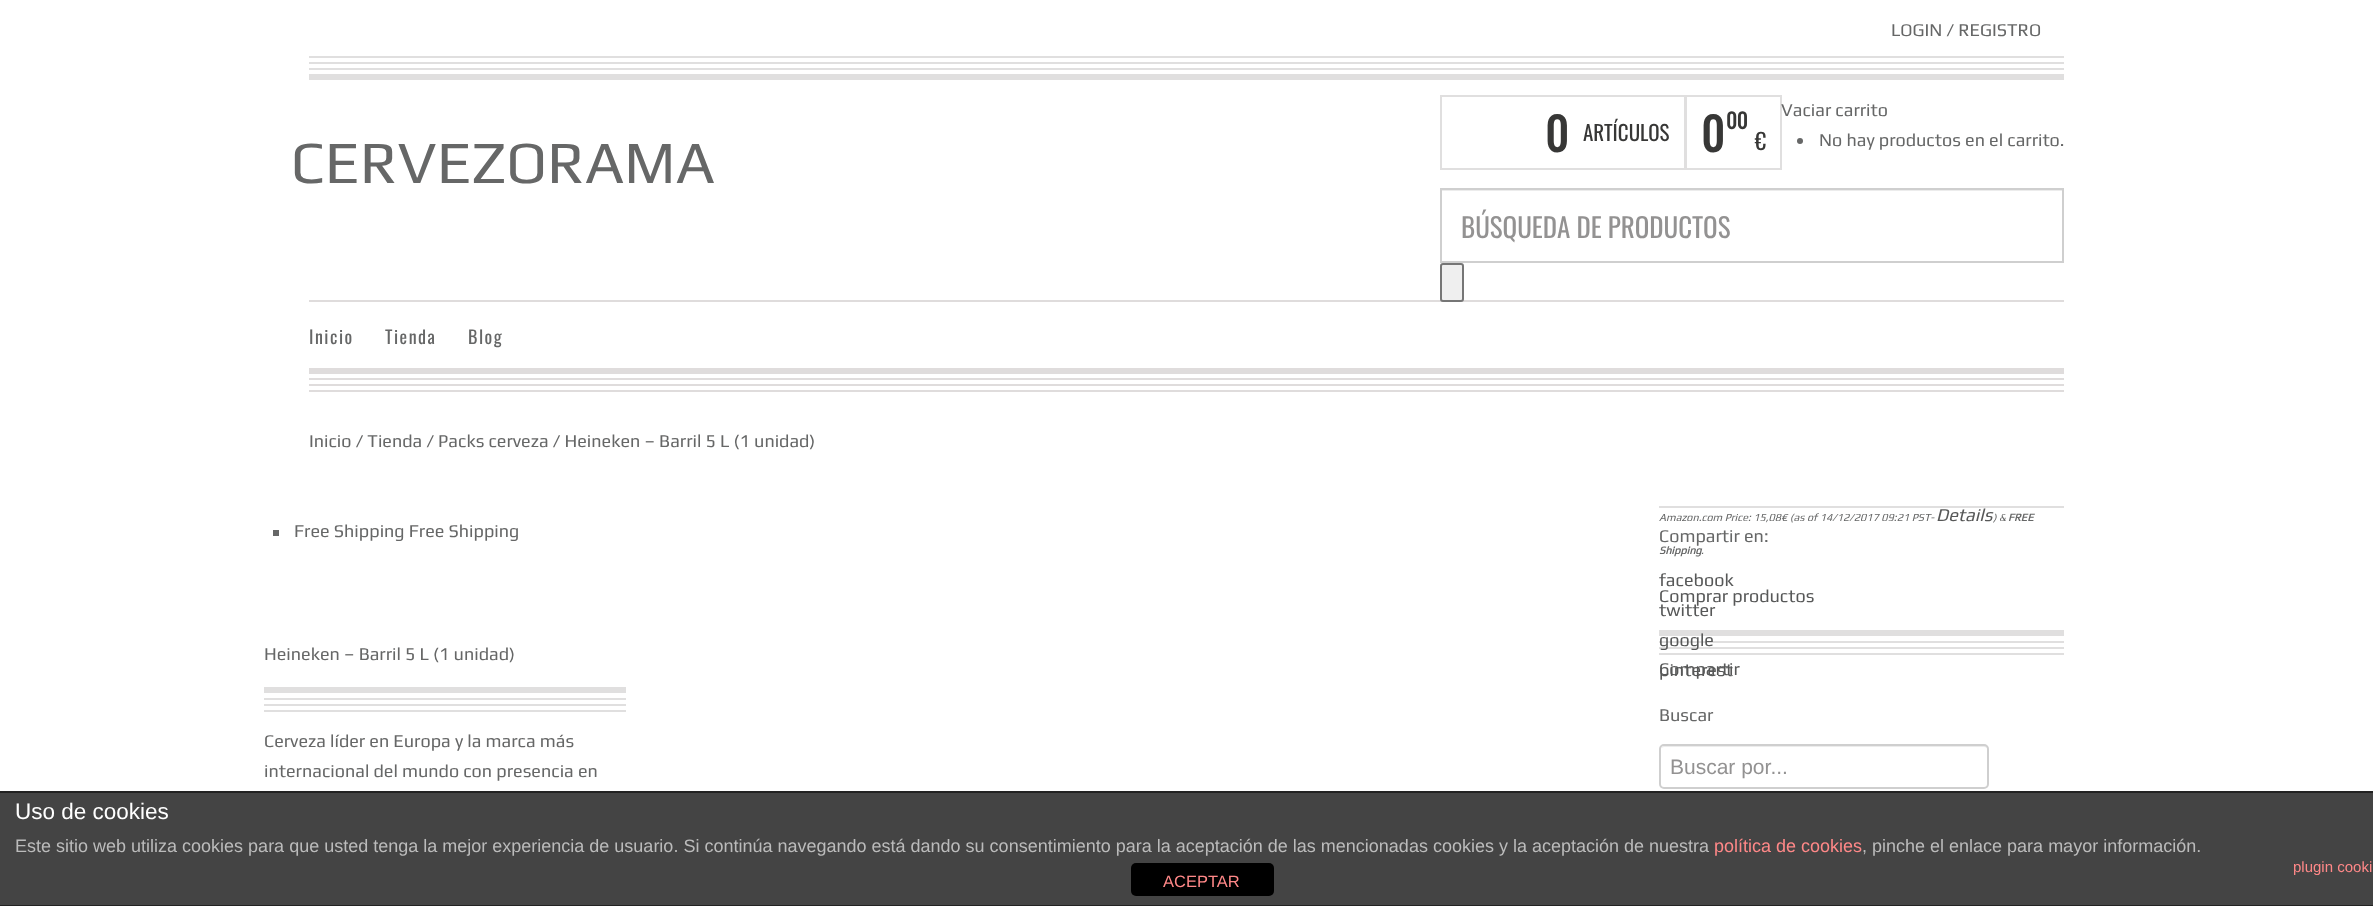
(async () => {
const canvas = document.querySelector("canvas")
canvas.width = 2373
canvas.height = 906
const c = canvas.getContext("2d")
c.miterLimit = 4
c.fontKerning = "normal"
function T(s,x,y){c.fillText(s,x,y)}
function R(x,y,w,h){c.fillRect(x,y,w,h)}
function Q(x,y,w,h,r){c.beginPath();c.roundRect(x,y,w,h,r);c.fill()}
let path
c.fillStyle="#fff"
R(0,0,2373,906)
c.font="18px Play"
c.fillStyle="#666767"
T("LOGIN / REGISTRO",1891,36)
c.fillStyle="#e0dfdf"
R(309,56,1755,2)
R(309,62,1755,2)
R(309,68,1755,2)
R(309,74,1755,6)
c.font="60px Play"
c.fillStyle="#666767"
T("CERVEZORAMA",291,183)
c.strokeStyle="#e0dfdf"
c.lineWidth=2
c.strokeRect(1441,96,244,73)
c.font="bold 45px Oswald"
c.fillStyle="#373736"
T("0",1545,152)
c.font="21px Oswald"
T("ARTÍCULOS",1583,141)
c.strokeRect(1686,96,95,73)
c.font="bold 45px Oswald"
T("0",1701,152)
c.font="bold 21px Oswald"
T("00",1726,129)
c.font="22.5px Oswald"
T("€",1755,150)
c.font="18px Play"
c.fillStyle="#666767"
T("Vaciar carrito",1781,116)
c.beginPath()
c.arc(1800,141,3,0,7)
c.fill()
T("No hay productos en el carrito.",1819,146)
c.fillStyle="#ececec"
R(1442,190,621,1)
c.strokeStyle="#cfcfcf"
c.strokeRect(1441,189,622,73)
c.font="27px Oswald"
c.fillStyle="#939292"
T("BÚSQUEDA DE PRODUCTOS",1461,238)
c.fillStyle="#dfdcdc"
R(309,300,1755,2)
c.fillStyle="#efefef"
c.beginPath()
c.roundRect(1441,264,22,37,2)
c.fill()
c.strokeStyle="#767676"
c.stroke()
c.letterSpacing="1.5px"
c.font="18px Oswald"
c.fillStyle="#666767"
T("Inicio",309,344)
T("Tienda",385,344)
T("Blog",468,344)
c.fillStyle="#dfdcdc"
R(309,368,1755,6)
R(309,378,1755,2)
R(309,384,1755,2)
R(309,390,1755,2)
c.letterSpacing="0px"
c.font="18px Play"
c.fillStyle="#666767"
T("Inicio / Tienda / Packs cerveza / Heineken – Barril 5 L (1 unidad)",309,447)
R(273,530,6,6)
T("Free Shipping Free Shipping",294,537)
T("Heineken – Barril 5 L (1 unidad)",264,660)
c.fillStyle="#e0dfdf"
R(264,687,362,6)
R(264,698,362,2)
R(264,704,362,2)
R(264,710,362,2)
c.fillStyle="#666767"
T("Cerveza líder en Europa y la marca más",264,747)
T("internacional del mundo con presencia en",264,777)
c.fillStyle="#e0dfdf"
R(1659,506,405,2)
c.font="italic 10.8px Play"
c.fillStyle="#666767"
T("Amazon.com Price: 15,08€ (as of 14/12/2017 09:21 PST-",1659,521)
c.font="italic 18px Play"
c.fillStyle="#575858"
T("Details",1936,521)
c.font="italic 10.8px Play"
c.fillStyle="#666767"
T(") &",1993,521)
c.font="italic bold 10.8px Play"
T("FREE",2008,521)
T("Shipping",1659,554)
c.font="italic 10.8px Play"
T(".",1701,554)
c.font="18px Play"
c.fillStyle="#575858"
T("Comprar productos",1659,602)
c.fillStyle="#e0dfdf"
R(1659,630,405,6)
R(1659,641,405,2)
R(1659,647,405,2)
R(1659,653,405,2)
c.fillStyle="#575858"
T("Compartir",1659,675)
c.fillStyle="#666767"
T("Compartir en:",1659,542)
c.fillStyle="#575858"
T("facebook",1659,586)
T("twitter",1659,616)
T("google",1659,646)
T("pinterest",1659,676)
c.fillStyle="#666767"
T("Buscar",1659,721)
c.fillStyle="#ececec"
path = new Path2D("M1664 747h320c2 0 4 1 4 3v-1c0-2-1-3-3-3h-321c-1 0-2 1-3 2z")
c.fill(path)
c.beginPath()
c.roundRect(1660,745,328,43,4)
c.strokeStyle="#cfcfcf"
c.stroke()
c.font="21px Liberation Sans"
c.fillStyle="#939292"
T("Buscar por...",1670,774)
c.fillStyle="#444"
R(0,793,2373,112)
c.fillStyle="#222"
R(0,791,2373,2)
R(0,905,2373,1)
c.font="22.5px Liberation Sans"
c.fillStyle="#fff"
T("Uso de cookies",15,819)
c.font="18px Liberation Sans"
c.fillStyle="#bbb"
T("Este sitio web utiliza cookies para que usted tenga la mejor experiencia de usuario. Si continúa navegando está dando su consentimiento para la aceptación de las mencionadas cookies y la aceptación de nuestra",15,852)
c.fillStyle="#f88"
T("política de cookies",1714,852)
c.fillStyle="#bbb"
T(", pinche el enlace para mayor información.",1862,852)
c.font="15px Liberation Sans"
c.fillStyle="#f88"
T("plugin cooki",2293,872)
c.fillStyle="#000"
Q(1131,863,143,33,5)
c.font="16.5px Liberation Sans"
c.fillStyle="#f88"
T("ACEPTAR",1163,887)
})()
